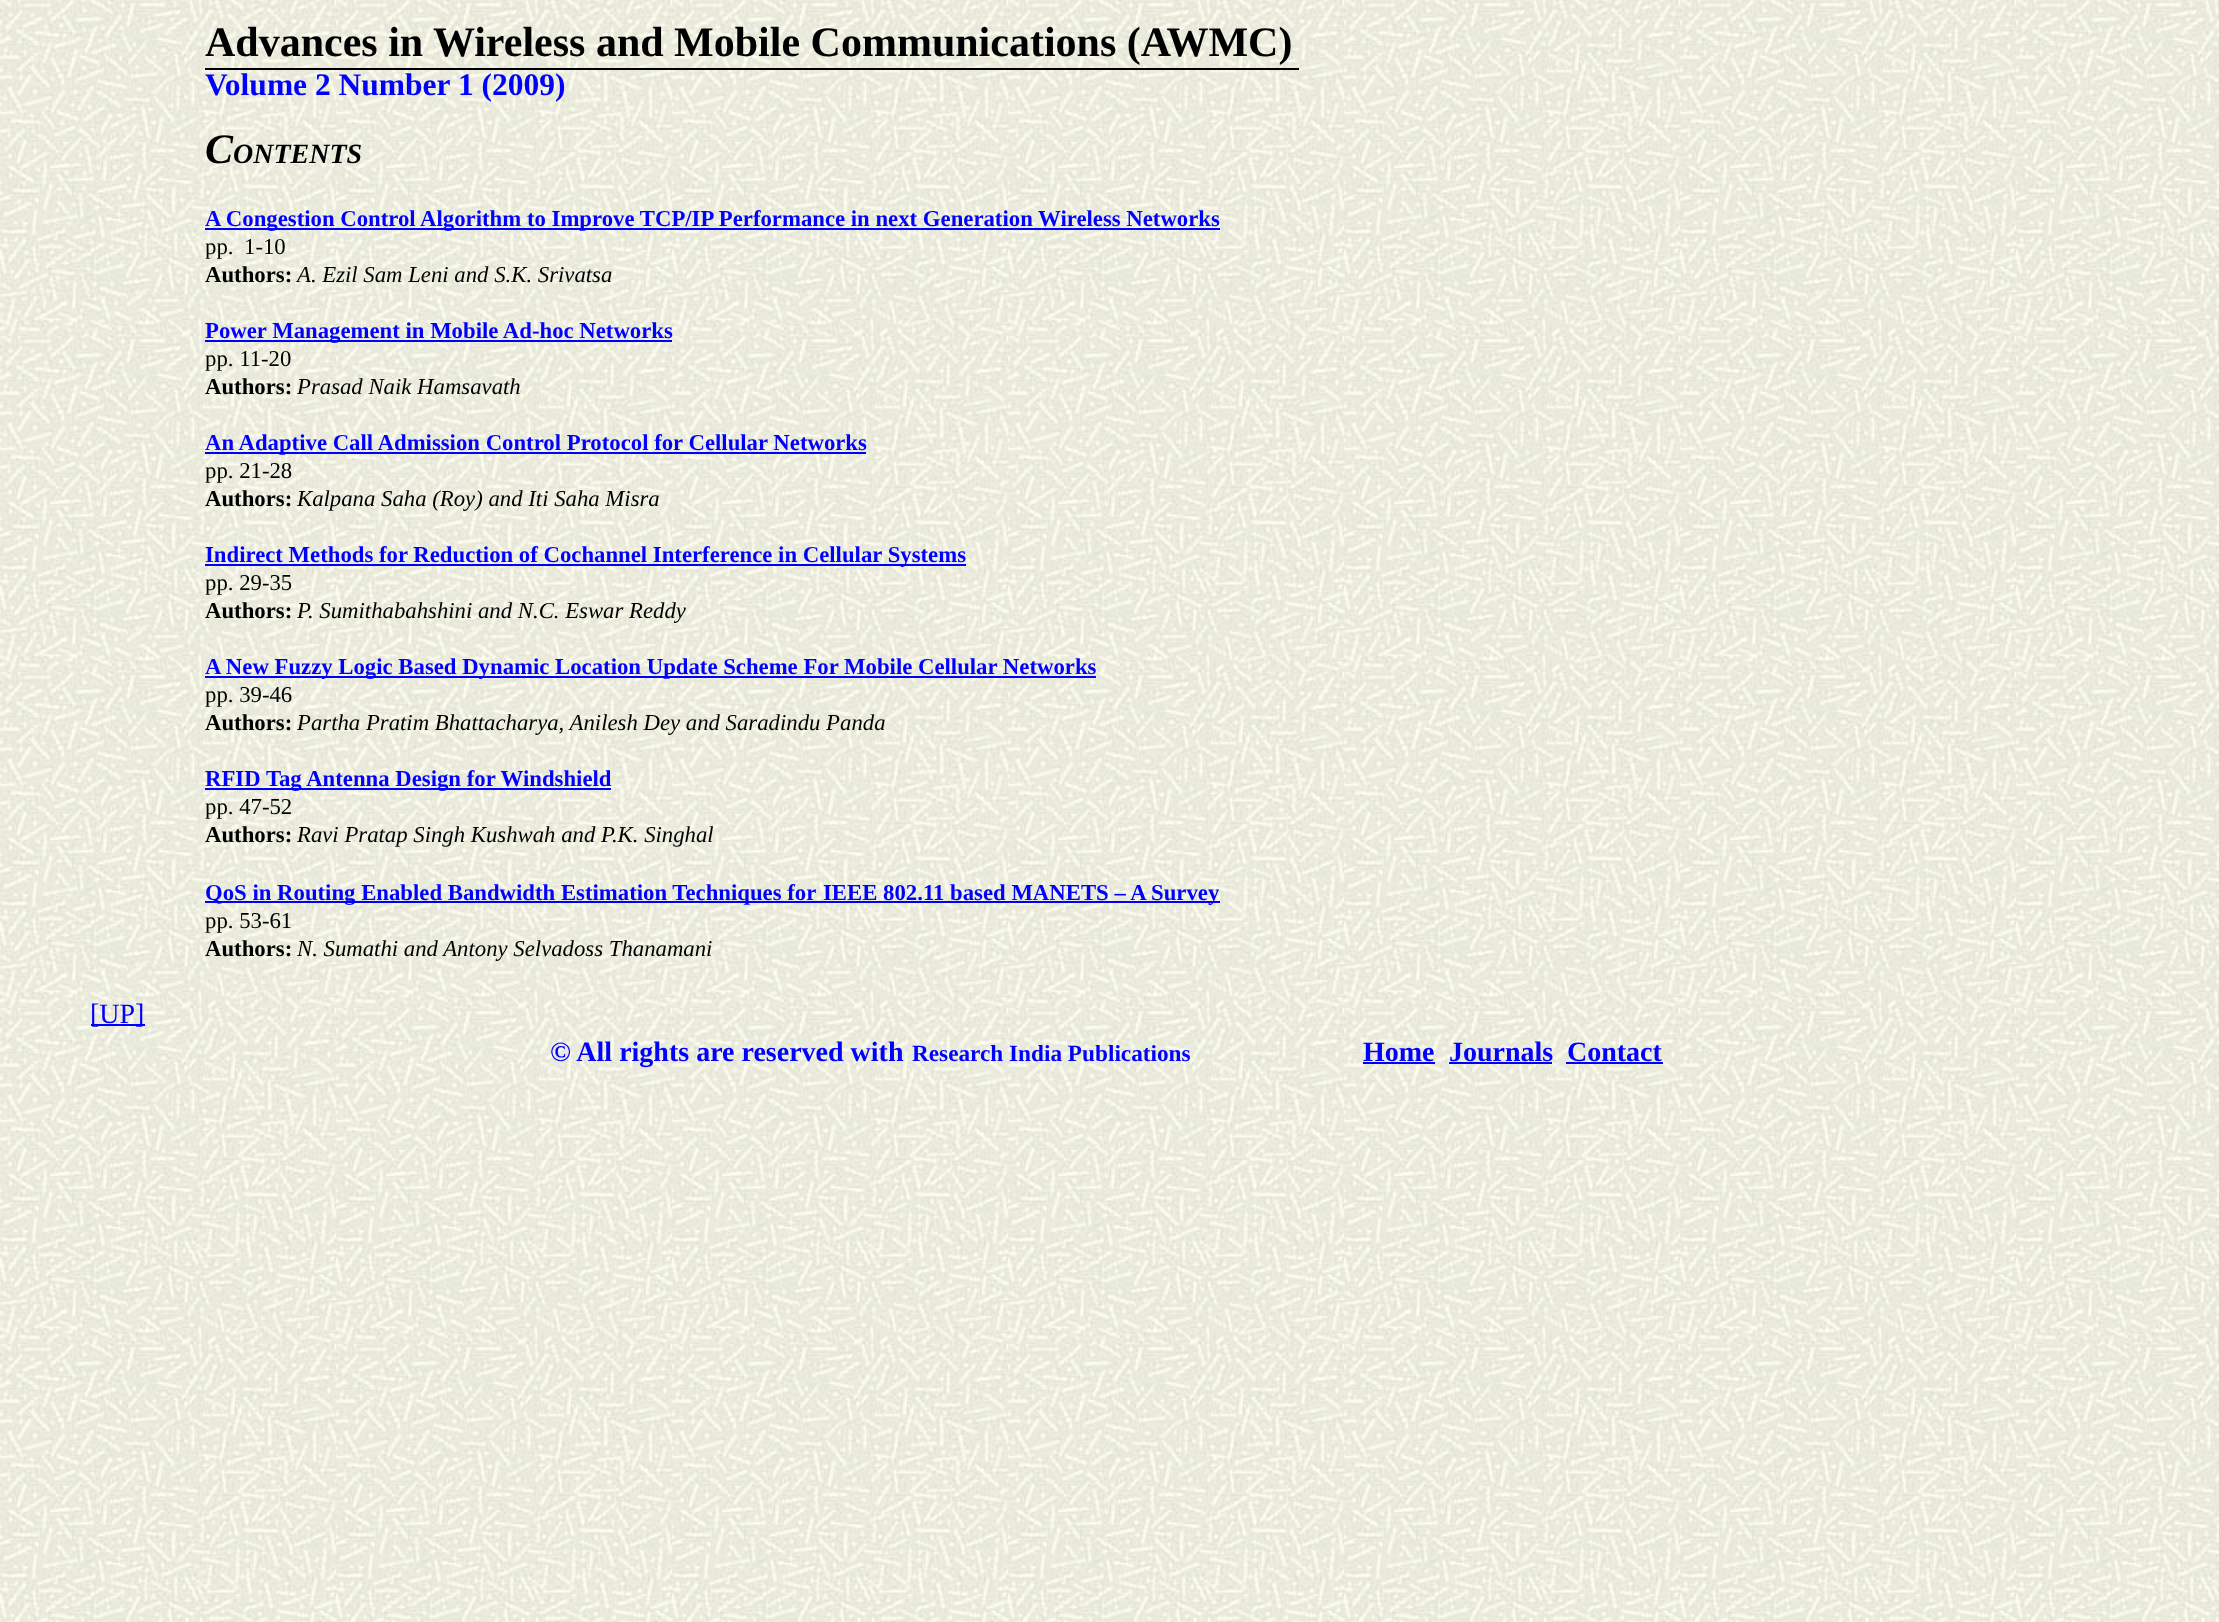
(async () => {
const canvas = document.querySelector("canvas")
canvas.width = 2219
canvas.height = 1622
const c = canvas.getContext("2d")
c.miterLimit = 4
c.fontKerning = "normal"
function T(s,x,y){c.fillText(s,x,y)}
function R(x,y,w,h){c.fillRect(x,y,w,h)}
async function I(src,x,y,w,h){const img=new Image();img.src=src;await img.decode();c.drawImage(img,x,y,w,h)}
c.fillStyle="#fff"
R(0,0,2219,1622)
await I("1.png",0,0,2219,1622)
c.fillStyle="#000"
R(205,68,1094,2)
c.font="bold 42px Liberation Serif"
T("Advances in Wireless and Mobile Communications (AWMC)",205,56)
c.font="bold 31.5px Liberation Serif"
c.fillStyle="#00f"
T("Volume 2 Number 1 (2009)",205,95)
c.font="italic bold 42px Liberation Serif"
c.fillStyle="#000"
T("C",205,163)
c.font="italic bold 28px Liberation Serif"
T("ONTENTS",233,163)
c.fillStyle="#00f"
R(205,228,1015,2)
c.font="bold 22.75px Liberation Serif"
T("A Congestion Control Algorithm to Improve TCP/IP Performance in next Generation Wireless Networks",205,226)
c.font="22.75px Liberation Serif"
c.fillStyle="#000"
T("pp.",205,254)
T("1-10",244,254)
c.font="bold 22.75px Liberation Serif"
T("Authors:",205,282)
c.font="italic 22.75px Liberation Serif"
T("A. Ezil Sam Leni and S.K. Srivatsa",297,282)
c.fillStyle="#00f"
R(205,340,467,2)
c.font="bold 22.75px Liberation Serif"
T("Power Management in Mobile Ad-hoc Networks",205,338)
c.font="22.75px Liberation Serif"
c.fillStyle="#000"
T("pp. 11-20",205,366)
c.font="bold 22.75px Liberation Serif"
T("Authors:",205,394)
c.font="italic 22.75px Liberation Serif"
T("Prasad Naik Hamsavath",297,394)
c.fillStyle="#00f"
R(205,452,661,2)
c.font="bold 22.75px Liberation Serif"
T("An Adaptive Call Admission Control Protocol for Cellular Networks",205,450)
c.font="22.75px Liberation Serif"
c.fillStyle="#000"
T("pp. 21-28",205,478)
c.font="bold 22.75px Liberation Serif"
T("Authors:",205,506)
c.font="italic 22.75px Liberation Serif"
T("Kalpana Saha (Roy) and Iti Saha Misra",297,506)
c.fillStyle="#00f"
R(205,564,761,2)
c.font="bold 22.75px Liberation Serif"
T("Indirect Methods for Reduction of Cochannel Interference in Cellular Systems",205,562)
c.font="22.75px Liberation Serif"
c.fillStyle="#000"
T("pp. 29-35",205,590)
c.font="bold 22.75px Liberation Serif"
T("Authors:",205,618)
c.font="italic 22.75px Liberation Serif"
T("P. Sumithabahshini and N.C. Eswar Reddy",297,618)
c.fillStyle="#00f"
R(205,676,891,2)
c.font="bold 22.75px Liberation Serif"
T("A New Fuzzy Logic Based Dynamic Location Update Scheme For Mobile Cellular Networks",205,674)
c.font="22.75px Liberation Serif"
c.fillStyle="#000"
T("pp. 39-46",205,702)
c.font="bold 22.75px Liberation Serif"
T("Authors:",205,730)
c.font="italic 22.75px Liberation Serif"
T("Partha Pratim Bhattacharya, Anilesh Dey and Saradindu Panda",297,730)
c.fillStyle="#00f"
R(205,788,406,2)
c.font="bold 22.75px Liberation Serif"
T("RFID Tag Antenna Design for Windshield",205,786)
c.font="22.75px Liberation Serif"
c.fillStyle="#000"
T("pp. 47-52",205,814)
c.font="bold 22.75px Liberation Serif"
T("Authors:",205,842)
c.font="italic 22.75px Liberation Serif"
T("Ravi Pratap Singh Kushwah and P.K. Singhal",297,842)
c.fillStyle="#00f"
R(205,901,1015,2)
c.font="bold 22.75px Liberation Serif"
T("QoS in Routing Enabled Bandwidth Estimation Techniques for",205,900)
T("IEEE 802.11 based MANETS – A Survey",823,900)
c.font="22.75px Liberation Serif"
c.fillStyle="#000"
T("pp. 53-61",205,928)
c.font="bold 22.75px Liberation Serif"
T("Authors:",205,956)
c.font="italic 22.75px Liberation Serif"
T("N. Sumathi and Antony Selvadoss Thanamani",297,956)
c.fillStyle="#00f"
R(91,1024,54,2)
c.font="28px Liberation Serif"
T("[UP]",90,1023)
c.font="bold 28px Liberation Serif"
T("© All rights are reserved with",550,1061)
c.font="bold 23.25px Liberation Serif"
T("Research India Publications",912,1061)
c.font="bold 28px Liberation Serif"
T("Home",1363,1061)
R(1363,1062,72,2)
T("Journals",1449,1061)
R(1449,1062,103,2)
T("Contact",1567,1061)
R(1566,1062,97,2)
})()
